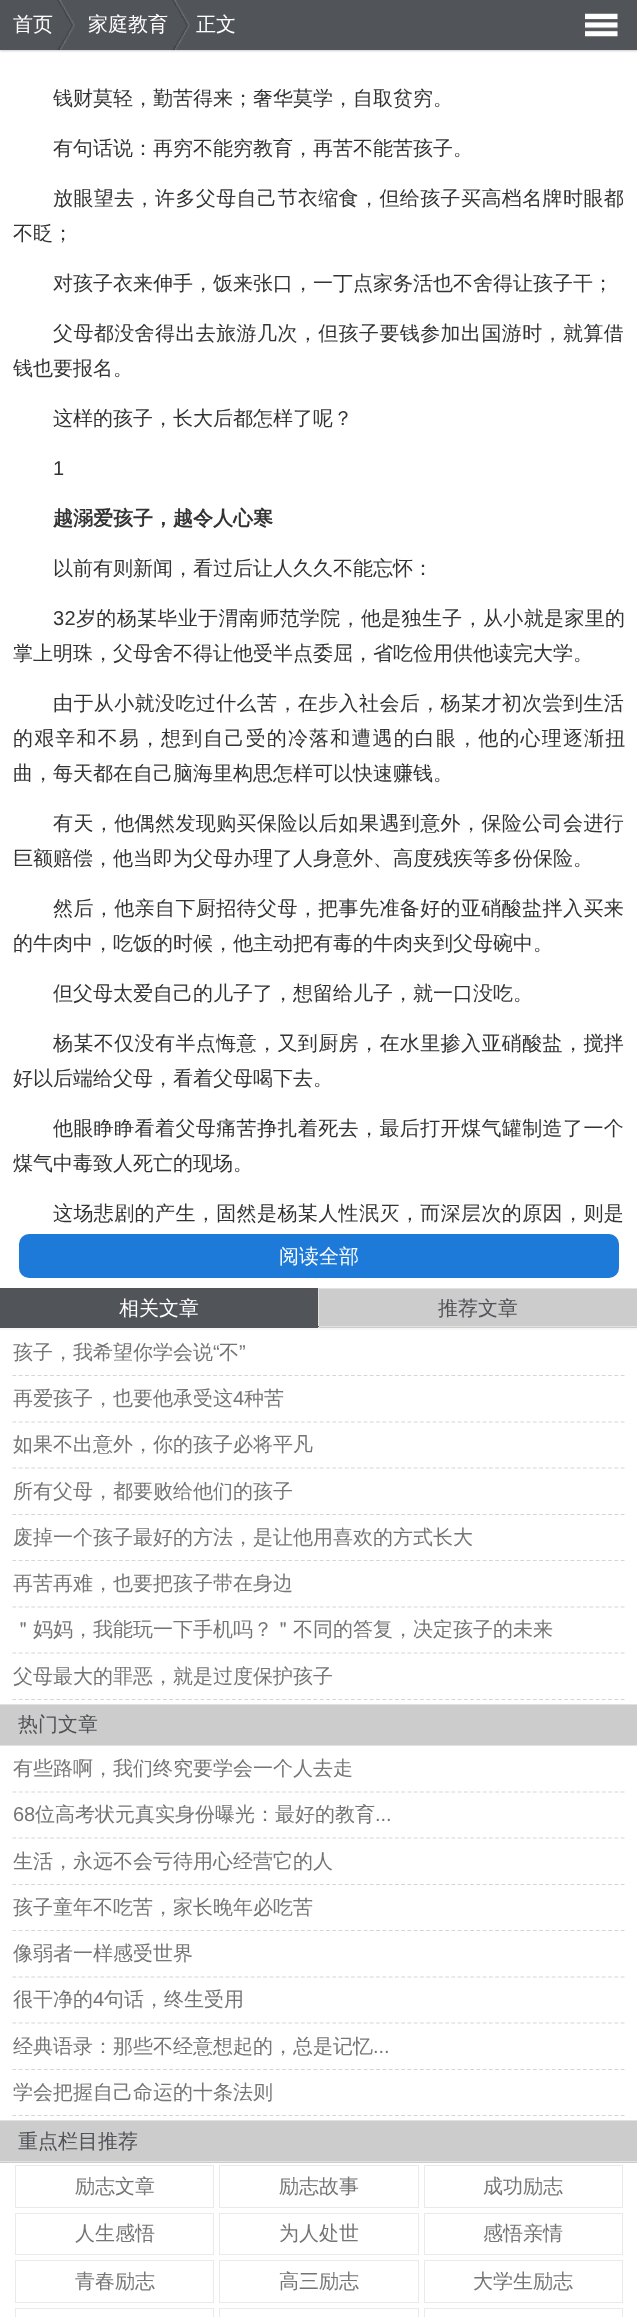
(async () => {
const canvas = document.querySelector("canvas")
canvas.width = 637
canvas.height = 2317
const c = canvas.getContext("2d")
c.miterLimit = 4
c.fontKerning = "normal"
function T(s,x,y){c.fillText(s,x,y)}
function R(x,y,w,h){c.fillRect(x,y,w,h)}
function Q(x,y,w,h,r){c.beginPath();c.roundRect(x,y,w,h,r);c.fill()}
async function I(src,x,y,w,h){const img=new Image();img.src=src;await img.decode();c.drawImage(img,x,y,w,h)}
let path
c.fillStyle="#fff"
R(0,0,637,2317)
c.fillStyle="#00000033"
c.filter="blur(1px)"
c.beginPath()
c.rect(0,1,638,50)
c.fill()
c.filter="none"
c.fillStyle="#515459"
R(0,0,637,50)
await I("1.png",57,0,18,50)
c.font="500 20px WenQuanYi Zen Hei"
c.fillStyle="#fff"
T("首页",13,31)
await I("2.png",172,0,18,50)
T("家庭教育",88,31)
T("正文",196,31)
await I("3.png",585,13,33,24)
c.fillStyle="#333"
T("钱财莫轻，勤苦得来；奢华莫学，自取贫穷。",53,105)
T("有句话说：再穷不能穷教育，再苦不能苦孩子。",53,155)
c.letterSpacing="0.4px"
T("放眼望去，许多父母自己节衣缩食，但给孩子买高档名牌时眼都",53,205)
c.letterSpacing="0px"
T("不眨；",13,240)
T("对孩子衣来伸手，饭来张口，一丁点家务活也不舍得让孩子干；",53,290)
c.letterSpacing="0.4px"
T("父母都没舍得出去旅游几次，但孩子要钱参加出国游时，就算借",53,340)
c.letterSpacing="0px"
T("钱也要报名。",13,375)
T("这样的孩子，长大后都怎样了呢？",53,425)
c.font="20px Liberation Sans"
T("1",53,475)
c.font="bold 20px WenQuanYi Zen Hei"
T("越溺爱孩子，越令人心寒",53,525)
c.font="500 20px WenQuanYi Zen Hei"
T("以前有则新闻，看过后让人久久不能忘怀：",53,575)
c.letterSpacing="0.35px"
c.font="20px Liberation Sans"
T("32",53,625)
c.font="500 20px WenQuanYi Zen Hei"
T("岁的杨某毕业于渭南师范学院，他是独生子，从小就是家里的",76,625)
c.letterSpacing="0px"
T("掌上明珠，父母舍不得让他受半点委屈，省吃俭用供他读完大学。",13,660)
c.letterSpacing="0.4px"
T("由于从小就没吃过什么苦，在步入社会后，杨某才初次尝到生活",53,710)
c.letterSpacing="1.15px"
T("的艰辛和不易，想到自己受的冷落和遭遇的白眼，他的心理逐渐扭",13,745)
c.letterSpacing="0px"
T("曲，每天都在自己脑海里构思怎样可以快速赚钱。",13,780)
c.letterSpacing="0.4px"
T("有天，他偶然发现购买保险以后如果遇到意外，保险公司会进行",53,830)
c.letterSpacing="0px"
T("巨额赔偿，他当即为父母办理了人身意外、高度残疾等多份保险。",13,865)
c.letterSpacing="0.4px"
T("然后，他亲自下厨招待父母，把事先准备好的亚硝酸盐拌入买来",53,915)
c.letterSpacing="0px"
T("的牛肉中，吃饭的时候，他主动把有毒的牛肉夹到父母碗中。",13,950)
T("但父母太爱自己的儿子了，想留给儿子，就一口没吃。",53,1000)
c.letterSpacing="0.4px"
T("杨某不仅没有半点悔意，又到厨房，在水里掺入亚硝酸盐，搅拌",53,1050)
c.letterSpacing="0px"
T("好以后端给父母，看着父母喝下去。",13,1085)
c.letterSpacing="0.4px"
T("他眼睁睁看着父母痛苦挣扎着死去，最后打开煤气罐制造了一个",53,1135)
c.letterSpacing="0px"
T("煤气中毒致人死亡的现场。",13,1170)
c.letterSpacing="0.4px"
T("这场悲剧的产生，固然是杨某人性泯灭，而深层次的原因，则是",53,1220)
c.fillStyle="#1d7ad9"
Q(19,1234,600,44,10)
c.letterSpacing="0px"
c.fillStyle="#fff"
T("阅读全部",279,1263)
c.fillStyle="#f7f7f7"
R(0,1328,637,2)
c.fillStyle="#515459"
R(0,1288,318,40)
c.fillStyle="#e2e2e2"
R(318,1288,1,40)
c.fillStyle="#515459"
R(318,1326,1,1)
c.fillStyle="#fff"
T("相关文章",119,1315)
c.fillStyle="#ccc"
R(319,1289,318,39)
c.fillStyle="#e2e2e2"
R(319,1288,318,1)
R(319,1326,318,1)
c.fillStyle="#515257"
T("推荐文章",438,1315)
path = new Path2D("M12.5 1375.5h612.5")
c.strokeStyle="#d5d5d5"
c.lineWidth=1.2
c.setLineDash([3.75,2.52])
c.stroke(path)
c.fillStyle="#757575"
T("孩子，我希望你学会说",13,1359)
c.font="20px Liberation Sans"
T("“",213,1359)
c.font="500 20px WenQuanYi Zen Hei"
T("不",219,1359)
c.font="20px Liberation Sans"
T("”",239,1359)
path = new Path2D("M12.5 1422h612.5")
c.stroke(path)
c.font="500 20px WenQuanYi Zen Hei"
T("再爱孩子，也要他承受这",13,1405)
c.font="20px Liberation Sans"
T("4",233,1405)
c.font="500 20px WenQuanYi Zen Hei"
T("种苦",244,1405)
path = new Path2D("M12.5 1468h612.5")
c.stroke(path)
T("如果不出意外，你的孩子必将平凡",13,1451)
path = new Path2D("M12.5 1514.5h612.5")
c.stroke(path)
T("所有父母，都要败给他们的孩子",13,1498)
path = new Path2D("M12.5 1560.5h612.5")
c.stroke(path)
T("废掉一个孩子最好的方法，是让他用喜欢的方式长大",13,1544)
path = new Path2D("M12.5 1607h612.5")
c.stroke(path)
T("再苦再难，也要把孩子带在身边",13,1590)
path = new Path2D("M12.5 1653h612.5")
c.stroke(path)
T("＂妈妈，我能玩一下手机吗？＂不同的答复，决定孩子的未来",13,1636)
c.save()
c.beginPath()
c.rect(0,1330,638,370)
c.clip()
path = new Path2D("M12.5 1699.5h612.5")
c.stroke(path)
c.restore()
T("父母最大的罪恶，就是过度保护孩子",13,1683)
c.fillStyle="#ccc"
R(0,1705,637,40)
c.fillStyle="#e2e2e2"
R(0,1704,637,1)
R(0,1745,637,1)
c.fillStyle="#515257"
T("热门文章",18,1731)
path = new Path2D("M12.5 1792h612.5")
c.stroke(path)
c.fillStyle="#757575"
T("有些路啊，我们终究要学会一个人去走",13,1775)
path = new Path2D("M12.5 1838h612.5")
c.stroke(path)
c.font="20px Liberation Sans"
T("68",13,1821)
c.font="500 20px WenQuanYi Zen Hei"
T("位高考状元真实身份曝光：最好的教育",35,1821)
c.font="20px Liberation Sans"
T("...",375,1821)
path = new Path2D("M12.5 1884.5h612.5")
c.stroke(path)
c.font="500 20px WenQuanYi Zen Hei"
T("生活，永远不会亏待用心经营它的人",13,1868)
path = new Path2D("M12.5 1930.5h612.5")
c.stroke(path)
T("孩子童年不吃苦，家长晚年必吃苦",13,1914)
path = new Path2D("M12.5 1977h612.5")
c.stroke(path)
T("像弱者一样感受世界",13,1960)
path = new Path2D("M12.5 2023h612.5")
c.stroke(path)
T("很干净的",13,2006)
c.font="20px Liberation Sans"
T("4",93,2006)
c.font="500 20px WenQuanYi Zen Hei"
T("句话，终生受用",104,2006)
path = new Path2D("M12.5 2069.5h612.5")
c.stroke(path)
T("经典语录：那些不经意想起的，总是记忆",13,2053)
c.font="20px Liberation Sans"
T("...",373,2053)
path = new Path2D("M12.5 2115.5h612.5")
c.stroke(path)
c.font="500 20px WenQuanYi Zen Hei"
T("学会把握自己命运的十条法则",13,2099)
c.fillStyle="#ccc"
R(0,2121,637,42)
c.fillStyle="#e2e2e2"
R(0,2120,637,1)
R(0,2161,637,1)
c.fillStyle="#515257"
T("重点栏目推荐",18,2148)
c.strokeStyle="#eaeaea"
c.lineWidth=1
c.setLineDash([])
c.strokeRect(15.5,2165.5,198,42)
c.fillStyle="#757575"
T("励志文章",75,2193)
c.strokeRect(219.5,2165.5,199,42)
T("励志故事",279,2193)
c.strokeRect(424.5,2165.5,198,42)
T("成功励志",483,2193)
c.strokeRect(15.5,2213.5,198,41)
T("人生感悟",75,2240)
c.strokeRect(219.5,2213.5,199,41)
T("为人处世",279,2240)
c.strokeRect(424.5,2213.5,198,41)
T("感悟亲情",483,2240)
c.strokeRect(15.5,2260.5,198,42)
T("青春励志",75,2288)
c.strokeRect(219.5,2260.5,199,42)
T("高三励志",279,2288)
c.strokeRect(424.5,2260.5,198,42)
T("大学生励志",473,2288)
c.strokeRect(15.5,2308.5,198,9)
c.strokeRect(219.5,2308.5,199,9)
c.strokeRect(424.5,2308.5,198,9)
})()
